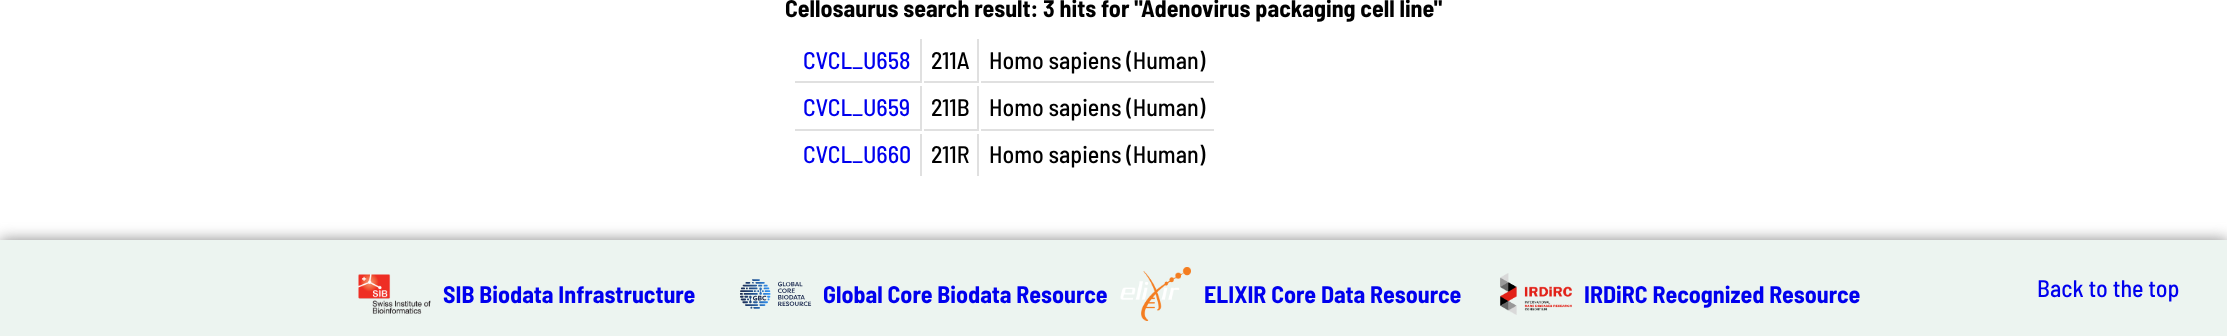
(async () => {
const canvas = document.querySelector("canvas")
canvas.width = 2227
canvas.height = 336
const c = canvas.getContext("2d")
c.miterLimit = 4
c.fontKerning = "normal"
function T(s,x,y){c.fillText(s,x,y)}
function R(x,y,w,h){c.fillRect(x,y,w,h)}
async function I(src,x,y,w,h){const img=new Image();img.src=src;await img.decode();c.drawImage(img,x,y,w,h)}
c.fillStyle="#fff"
R(0,0,2227,336)
c.font="bold 24px Barlow Semi Condensed"
c.fillStyle="#000"
T("Cellosaurus search result: 3 hits for \"Adenovirus packaging cell line\"",785,17)
c.fillStyle="#e0e0e0"
R(920,39,2,44)
R(795,81,126,2)
c.font="500 24px Barlow Semi Condensed"
c.fillStyle="#00e"
T("CVCL_U658",803,69)
c.fillStyle="#e0e0e0"
R(977,39,2,44)
R(924,81,54,2)
c.fillStyle="#000"
T("211A",931,69)
c.fillStyle="#e0e0e0"
R(981,81,233,2)
c.fillStyle="#000"
T("Homo sapiens (Human)",989,69)
c.fillStyle="#e0e0e0"
R(920,86,2,45)
R(795,129,126,2)
c.fillStyle="#00e"
T("CVCL_U659",803,116)
c.fillStyle="#e0e0e0"
R(977,86,2,45)
R(924,129,54,2)
c.fillStyle="#000"
T("211B",931,116)
c.fillStyle="#e0e0e0"
R(981,129,233,2)
c.fillStyle="#000"
T("Homo sapiens (Human)",989,116)
c.fillStyle="#e0e0e0"
R(920,134,2,42)
c.fillStyle="#00e"
T("CVCL_U660",803,163)
c.fillStyle="#e0e0e0"
R(977,134,2,42)
c.fillStyle="#000"
T("211R",931,163)
T("Homo sapiens (Human)",989,163)
c.fillStyle="#888"
c.filter="blur(7.5px)"
c.beginPath()
c.rect(0,240,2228,96)
c.fill()
c.filter="none"
c.fillStyle="#ecf4f0"
R(0,240,2227,96)
await I("1.png",358,274,73,40)
c.font="bold 24px Barlow Semi Condensed"
c.fillStyle="#00e"
T("SIB Biodata Infrastructure",443,303)
await I("2.png",740,279,72,30)
T("Global Core Biodata Resource",823,303)
await I("3.png",1120,267,71,54)
T("ELIXIR Core Data Resource",1204,303)
await I("4.png",1500,273,72,42)
T("IRDiRC Recognized Resource",1584,303)
c.font="500 24px Barlow Semi Condensed"
T("Back to the top",2037,297)
})()
